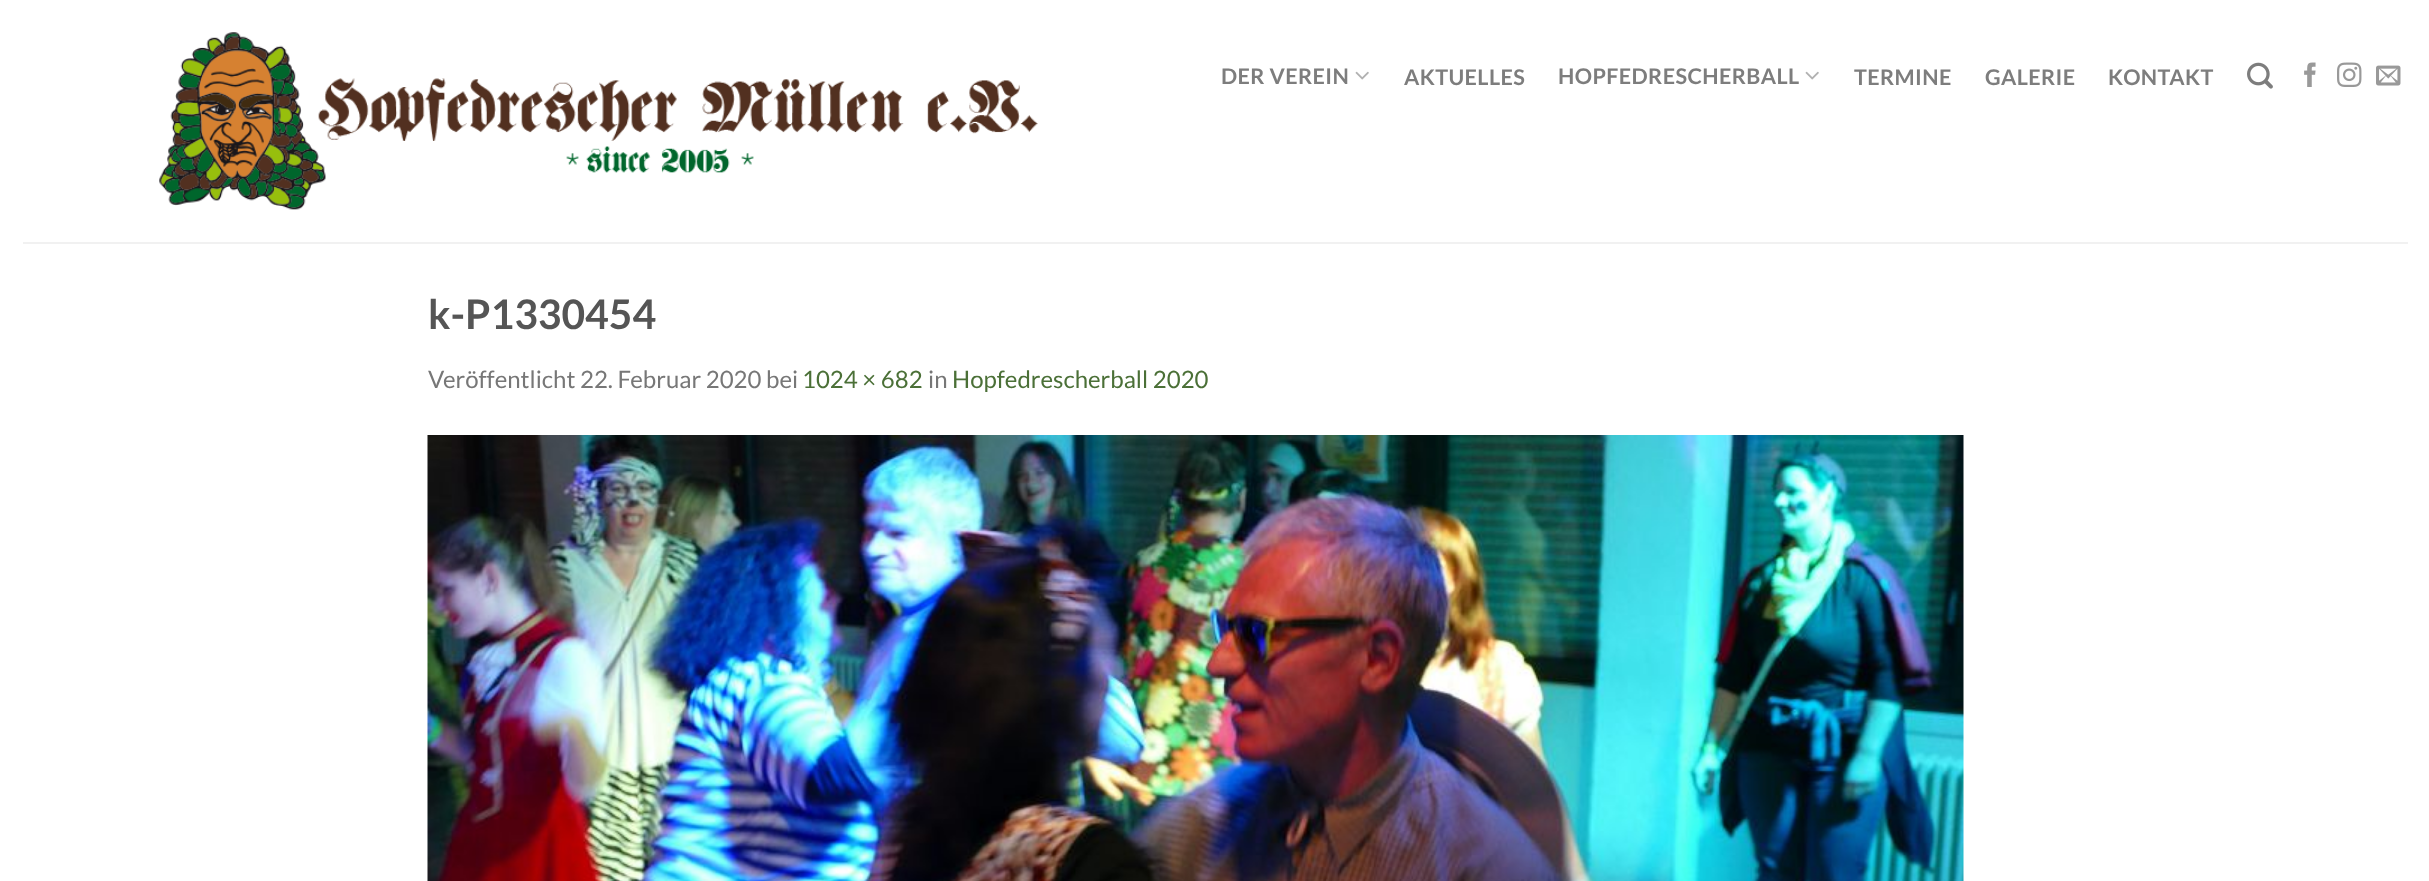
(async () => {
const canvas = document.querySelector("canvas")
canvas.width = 2429
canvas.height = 881
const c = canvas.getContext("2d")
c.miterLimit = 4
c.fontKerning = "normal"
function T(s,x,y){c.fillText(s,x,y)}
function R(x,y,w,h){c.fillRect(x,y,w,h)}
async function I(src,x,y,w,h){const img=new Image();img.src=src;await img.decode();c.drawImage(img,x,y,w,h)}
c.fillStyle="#fff"
R(0,0,2429,881)
await I("1.png",159,32,879,178)
c.letterSpacing="0.4px"
c.font="bold 21.6px Lato"
c.fillStyle="#7d7d7d"
T("DER VEREIN",1221,84)
await I("2.png",1355,71,14,9)
T("AKTUELLES",1404,85)
T("HOPFEDRESCHERBALL",1558,84)
await I("2.png",1805,71,14,9)
T("TERMINE",1854,85)
T("GALERIE",1985,85)
T("KONTAKT",2108,85)
await I("3.png",2247,62,26,27)
await I("4.png",2304,62,12,25)
await I("5.png",2337,62,25,25)
await I("6.png",2376,65,25,21)
c.fillStyle="#f1f1f1"
R(23,242,2385,2)
c.letterSpacing="0px"
c.font="bold 40.75px Lato"
c.fillStyle="#555"
T("k-P1330454",428,329)
c.font="24px Lato"
c.fillStyle="#777"
T("Veröffentlicht 22. Februar 2020 bei",428,388)
c.fillStyle="#4b7037"
T("1024 × 682",802,388)
c.fillStyle="#777"
T("in",928,388)
c.fillStyle="#4b7037"
T("Hopfedrescherball 2020",952,388)
await I("7.png",427,435,1537,446)
})()
